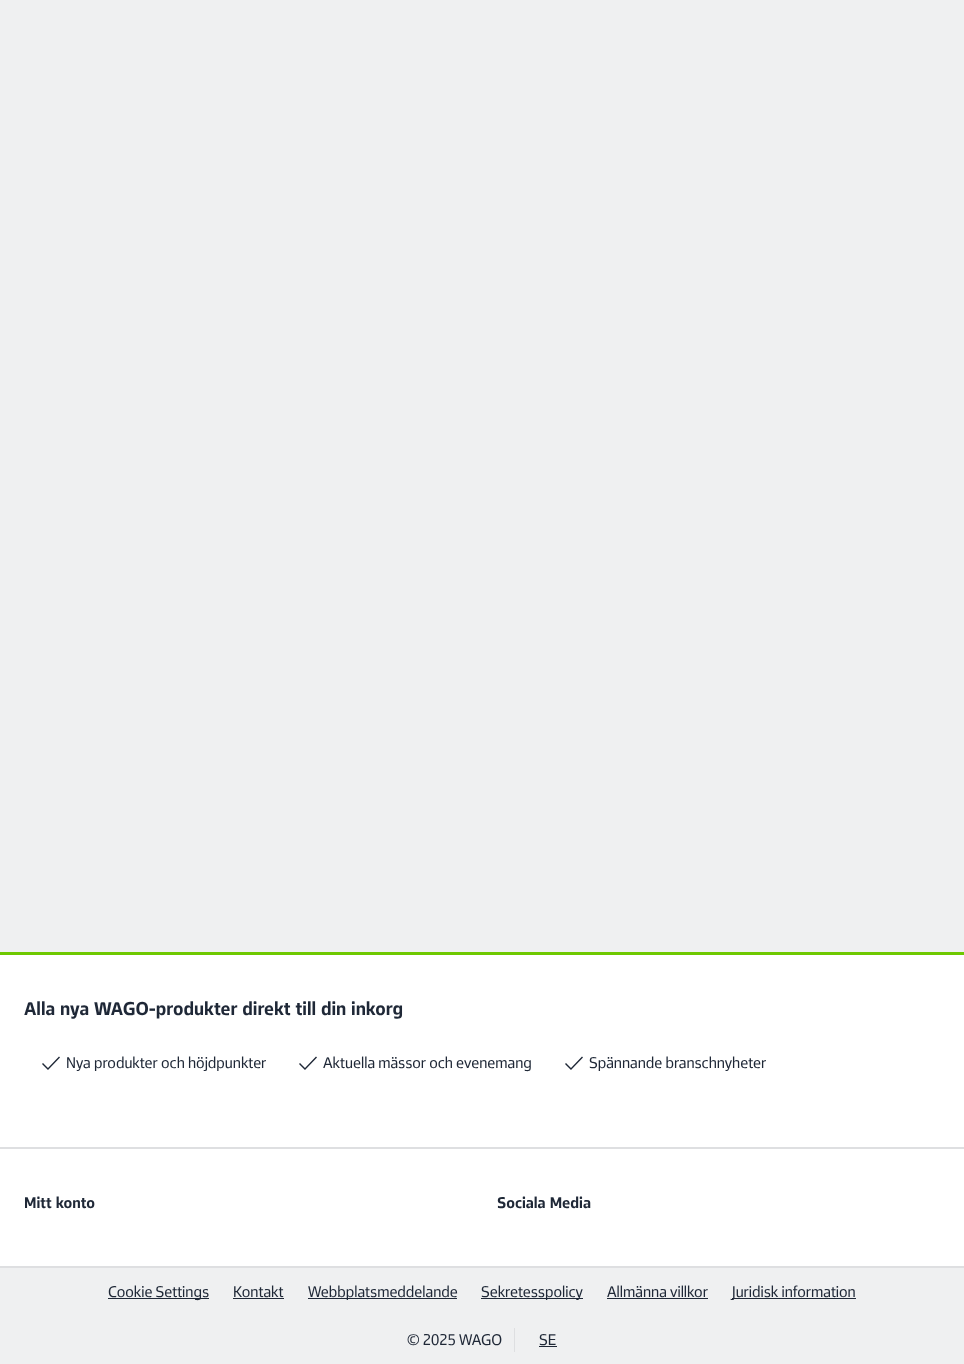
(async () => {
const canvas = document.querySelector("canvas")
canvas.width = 964
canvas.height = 1364
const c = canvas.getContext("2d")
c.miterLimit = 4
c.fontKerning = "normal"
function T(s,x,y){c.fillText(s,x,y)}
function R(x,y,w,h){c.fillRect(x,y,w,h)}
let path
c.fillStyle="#eff0f1"
R(0,0,964,1364)
c.fillStyle="#fff"
R(0,955,964,311)
c.fillStyle="#6ec800"
R(0,952,964,3)
c.font="bold 18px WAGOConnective"
c.fillStyle="#1f2837"
T("Alla nya WAGO-produkter direkt till din inkorg",24,1015)
path = new Path2D("M48 1070l-6-6l1-1l5 5l11-11.5l1 1z")
c.fill(path,"evenodd")
c.font="15px WAGOConnective"
T("Nya produkter och höjdpunkter",66,1068)
path = new Path2D("M305 1070l-6-6l1-1l5 5l11-11.5l1 1z")
c.fill(path,"evenodd")
T("Aktuella mässor och evenemang",323,1068)
path = new Path2D("M571 1070l-6-6l1-1l5 5l11-11.5l1 1z")
c.fill(path,"evenodd")
T("Spännande branschnyheter",589,1068)
c.fillStyle="#dedfe1"
R(0,1147,964,2)
c.font="bold 15px WAGOConnective"
c.fillStyle="#1f2837"
T("Mitt konto",24,1208)
T("Sociala Media",497,1208)
c.fillStyle="#dedfe1"
R(0,1266,964,2)
c.fillStyle="#1f2837"
R(108,1298,101,1)
c.font="15px WAGOConnective"
T("Cookie Settings",108,1297)
T("Kontakt",233,1297)
R(233,1298,51,1)
R(308,1298,149,1)
T("Webbplatsmeddelande",308,1297)
R(481,1298,102,1)
T("Sekretesspolicy",481,1297)
T("Allmänna villkor",607,1297)
R(607,1298,101,1)
R(732,1298,124,1)
T("Juridisk information",732,1297)
T("© 2025 WAGO",407,1345)
c.fillStyle="#dedfe1"
R(514,1328,1,24)
c.fillStyle="#1f2837"
T("SE",539,1345)
R(539,1346,18,1)
})()
